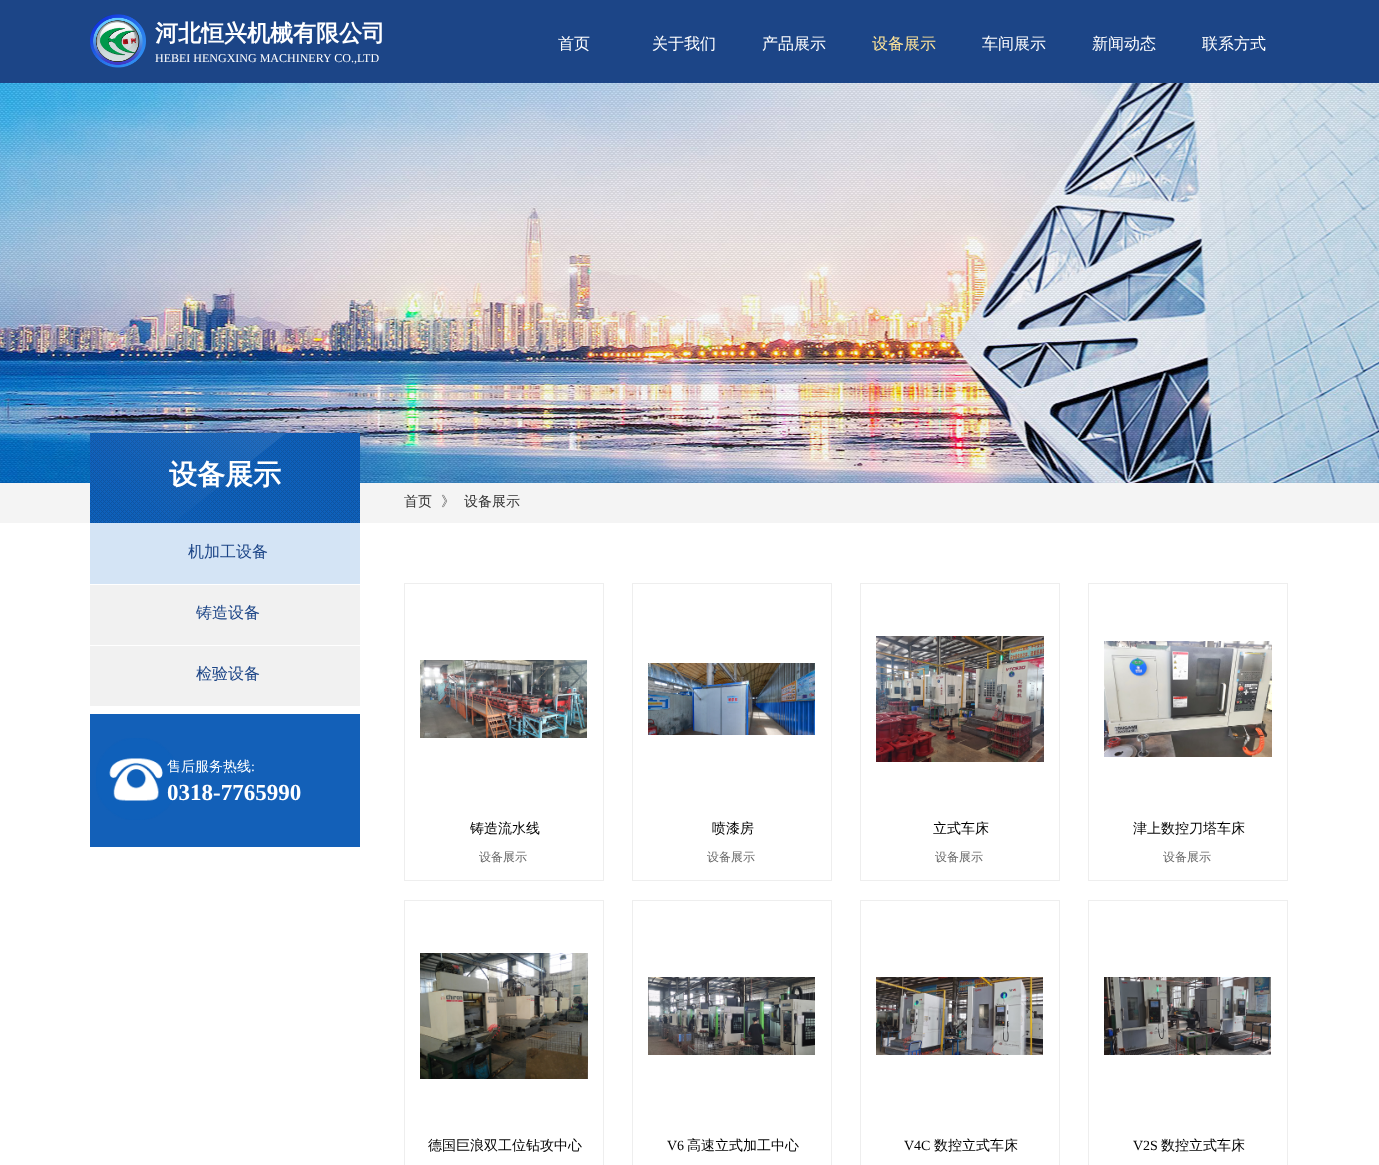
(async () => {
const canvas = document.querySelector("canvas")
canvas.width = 1379
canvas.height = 1165
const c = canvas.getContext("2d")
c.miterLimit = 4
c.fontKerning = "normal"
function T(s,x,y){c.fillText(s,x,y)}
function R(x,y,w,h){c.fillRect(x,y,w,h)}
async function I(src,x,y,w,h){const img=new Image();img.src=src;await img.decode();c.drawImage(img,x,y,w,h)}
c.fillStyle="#fff"
R(0,0,1379,1165)
c.fillStyle="#1c4587"
R(0,0,1379,83)
await I("1.png",90,14,56,54)
c.font="bold 23px WenQuanYi Zen Hei"
c.fillStyle="#fff"
T("河北恒兴机械有限公司",155,41)
c.font="12px Liberation Serif"
T("HEBEI HENGXING MACHINERY CO.,LTD",155,62)
c.font="500 16px WenQuanYi Zen Hei"
T("首页",558,49)
T("关于我们",652,49)
T("产品展示",762,49)
c.fillStyle="#ffe599"
T("设备展示",872,49)
c.fillStyle="#fff"
T("车间展示",982,49)
T("新闻动态",1092,49)
T("联系方式",1202,49)
await I("2.png",0,83,1379,400)
c.fillStyle="#f4f4f4"
R(0,483,1379,40)
await I("3.png",90,433,270,90)
c.font="bold 28px WenQuanYi Zen Hei"
c.fillStyle="#fff"
T("设备展示",169,484)
c.font="500 14px WenQuanYi Zen Hei"
c.fillStyle="#333"
T("首页",404,506)
c.fillStyle="#5a5a5a"
T("》",441,506)
c.fillStyle="#333"
T("设备展示",464,506)
c.fillStyle="#d4e4f5"
R(90,523,270,61)
c.font="500 16px WenQuanYi Zen Hei"
c.fillStyle="#1c4587"
T("机加工设备",188,557)
c.fillStyle="#f1f1f1"
R(90,585,270,60)
c.fillStyle="#1c4587"
T("铸造设备",196,618)
c.fillStyle="#f1f1f1"
R(90,646,270,60)
c.fillStyle="#1c4587"
T("检验设备",196,679)
c.fillStyle="#1360b8"
R(90,714,270,133)
await I("4.png",96,738,82,82)
c.font="500 14px WenQuanYi Zen Hei"
c.fillStyle="#fff"
T("售后服务热线",167,771)
c.font="14px Liberation Serif"
T(":",251,771)
c.font="bold 23px Liberation Serif"
T("0318-7765990",167,800)
c.strokeStyle="#eee"
c.strokeRect(404.5,583.5,199,297)
await I("5.png",420,660,167,78)
c.font="500 14px WenQuanYi Zen Hei"
c.fillStyle="#000"
T("铸造流水线",470,833)
c.font="500 12px WenQuanYi Zen Hei"
c.fillStyle="#666"
T("设备展示",479,861)
c.strokeRect(632.5,583.5,199,297)
await I("6.png",648,663,167,72)
c.font="500 14px WenQuanYi Zen Hei"
c.fillStyle="#000"
T("喷漆房",712,833)
c.font="500 12px WenQuanYi Zen Hei"
c.fillStyle="#666"
T("设备展示",707,861)
c.strokeRect(860.5,583.5,199,297)
await I("7.png",876,636,168,126)
c.font="500 14px WenQuanYi Zen Hei"
c.fillStyle="#000"
T("立式车床",933,833)
c.font="500 12px WenQuanYi Zen Hei"
c.fillStyle="#666"
T("设备展示",935,861)
c.strokeRect(1088.5,583.5,199,297)
await I("8.png",1104,641,168,116)
c.font="500 14px WenQuanYi Zen Hei"
c.fillStyle="#000"
T("津上数控刀塔车床",1133,833)
c.font="500 12px WenQuanYi Zen Hei"
c.fillStyle="#666"
T("设备展示",1163,861)
c.strokeRect(404.5,900.5,199,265)
await I("9.png",420,953,168,126)
c.font="500 14px WenQuanYi Zen Hei"
c.fillStyle="#000"
T("德国巨浪双工位钻攻中心",428,1150)
c.strokeRect(632.5,900.5,199,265)
await I("10.png",648,977,167,78)
c.font="14px Liberation Serif"
T("V6",667,1150)
c.font="500 14px WenQuanYi Zen Hei"
T("高速立式加工中心",687,1150)
c.strokeRect(860.5,900.5,199,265)
await I("11.png",876,977,167,78)
c.font="14px Liberation Serif"
T("V4C",904,1150)
c.font="500 14px WenQuanYi Zen Hei"
T("数控立式车床",934,1150)
c.strokeRect(1088.5,900.5,199,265)
await I("12.png",1104,977,167,78)
c.font="14px Liberation Serif"
T("V2S",1133,1150)
c.font="500 14px WenQuanYi Zen Hei"
T("数控立式车床",1161,1150)
})()
